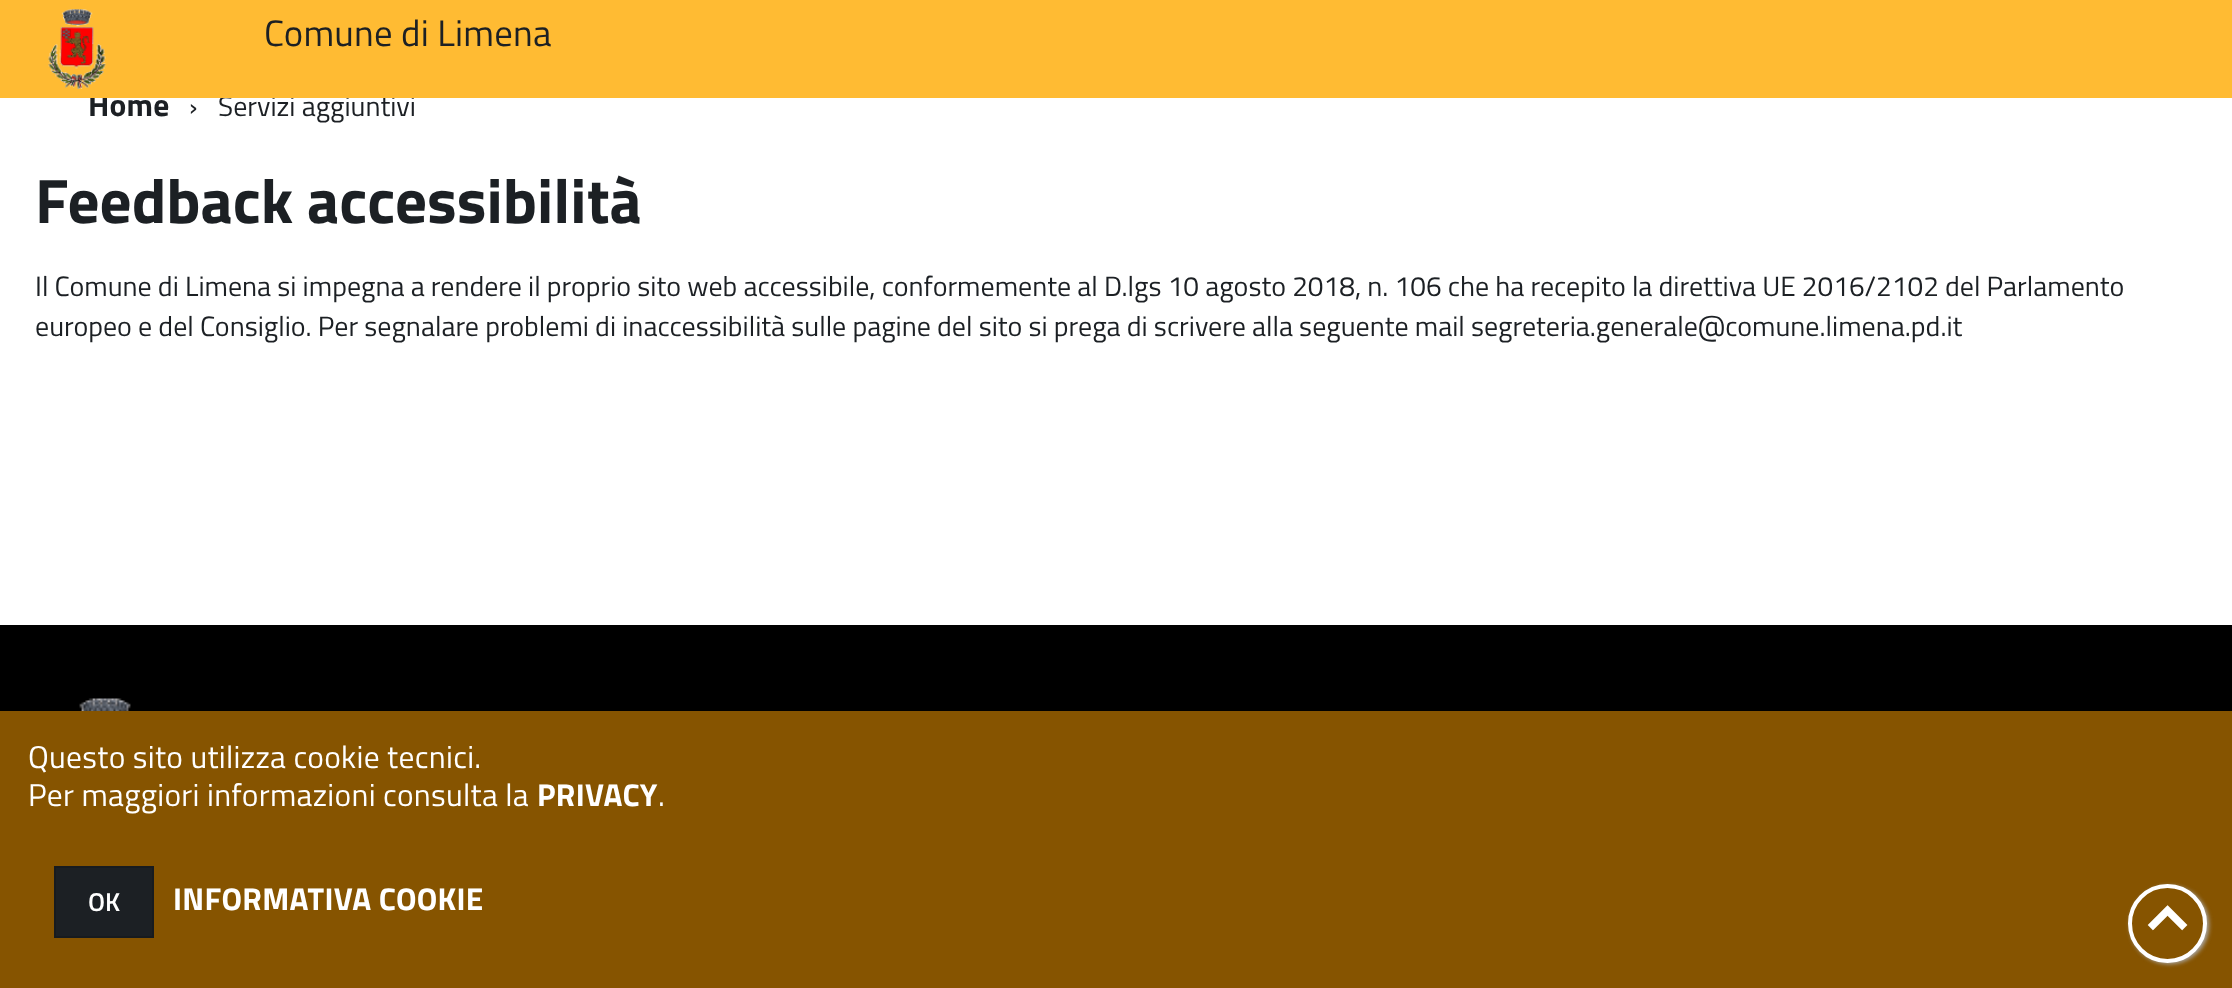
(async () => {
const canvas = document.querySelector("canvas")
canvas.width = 2232
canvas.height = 988
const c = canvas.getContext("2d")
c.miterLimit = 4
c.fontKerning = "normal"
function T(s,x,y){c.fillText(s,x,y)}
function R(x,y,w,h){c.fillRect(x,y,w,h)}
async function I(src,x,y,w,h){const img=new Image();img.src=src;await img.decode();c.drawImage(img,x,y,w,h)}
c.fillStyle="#fff"
R(0,0,2232,988)
c.letterSpacing="0.3px"
c.font="bold 31.5px Titillium Web"
c.fillStyle="#1c2024"
T("Home",88,116)
c.letterSpacing="0px"
c.font="28px Titillium Web"
T("Servizi aggiuntivi",218,116)
c.fillStyle="#fb3"
R(0,0,2232,98)
await I("1.png",48,9,58,80)
c.letterSpacing="0.2px"
c.font="36.75px Titillium Web"
c.fillStyle="#1c2024"
T("Comune di Limena",264,46)
c.letterSpacing="0px"
c.font="28px Titillium Web"
T("›",189,116)
c.font="bold 63px Titillium Web"
T("Feedback accessibilità",35,223)
c.font="28px Titillium Web"
T("Il Comune di Limena si impegna a rendere il proprio sito web accessibile, conformemente al D.lgs 10 agosto 2018, n. 106 che ha recepito la direttiva UE 2016/2102 del Parlamento",35,296)
T("europeo e del Consiglio. Per segnalare problemi di inaccessibilità sulle pagine del sito si prega di scrivere alla seguente mail segreteria.generale@comune.limena.pd.it",35,336)
c.fillStyle="#000"
R(0,625,2232,86)
await I("2.png",79,698,52,13)
c.fillStyle="#865400"
R(0,711,2232,277)
c.letterSpacing="0.3px"
c.font="31.5px Titillium Web"
c.fillStyle="#fff"
T("Questo sito utilizza cookie tecnici.",28,768)
T("Per maggiori informazioni consulta la",28,806)
c.font="bold 31.5px Titillium Web"
T("PRIVACY",537,806)
c.font="31.5px Titillium Web"
T(".",658,806)
c.fillStyle="#1c2024"
c.beginPath()
c.rect(55,867,98,70)
c.fill()
c.strokeStyle="#171b1f"
c.lineWidth=2
c.stroke()
c.letterSpacing="0px"
c.font="600 26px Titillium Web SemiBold"
c.fillStyle="#fff"
T("OK",88,911)
c.letterSpacing="0.3px"
c.font="bold 31.5px Titillium Web"
T("INFORMATIVA COOKIE",173,910)
c.fillStyle="#aaa"
c.filter="blur(2px)"
c.beginPath()
c.roundRect(2130,886,79,78,39)
c.fill()
c.filter="none"
c.fillStyle="#865400"
c.beginPath()
c.arc(2167.5,923.5,37.5,0,7)
c.fill()
c.strokeStyle="#fff"
c.lineWidth=4
c.stroke()
c.letterSpacing="0px"
c.font="bold 38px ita"
c.fillStyle="#fff"
T("⏷",2148,935)
})()
